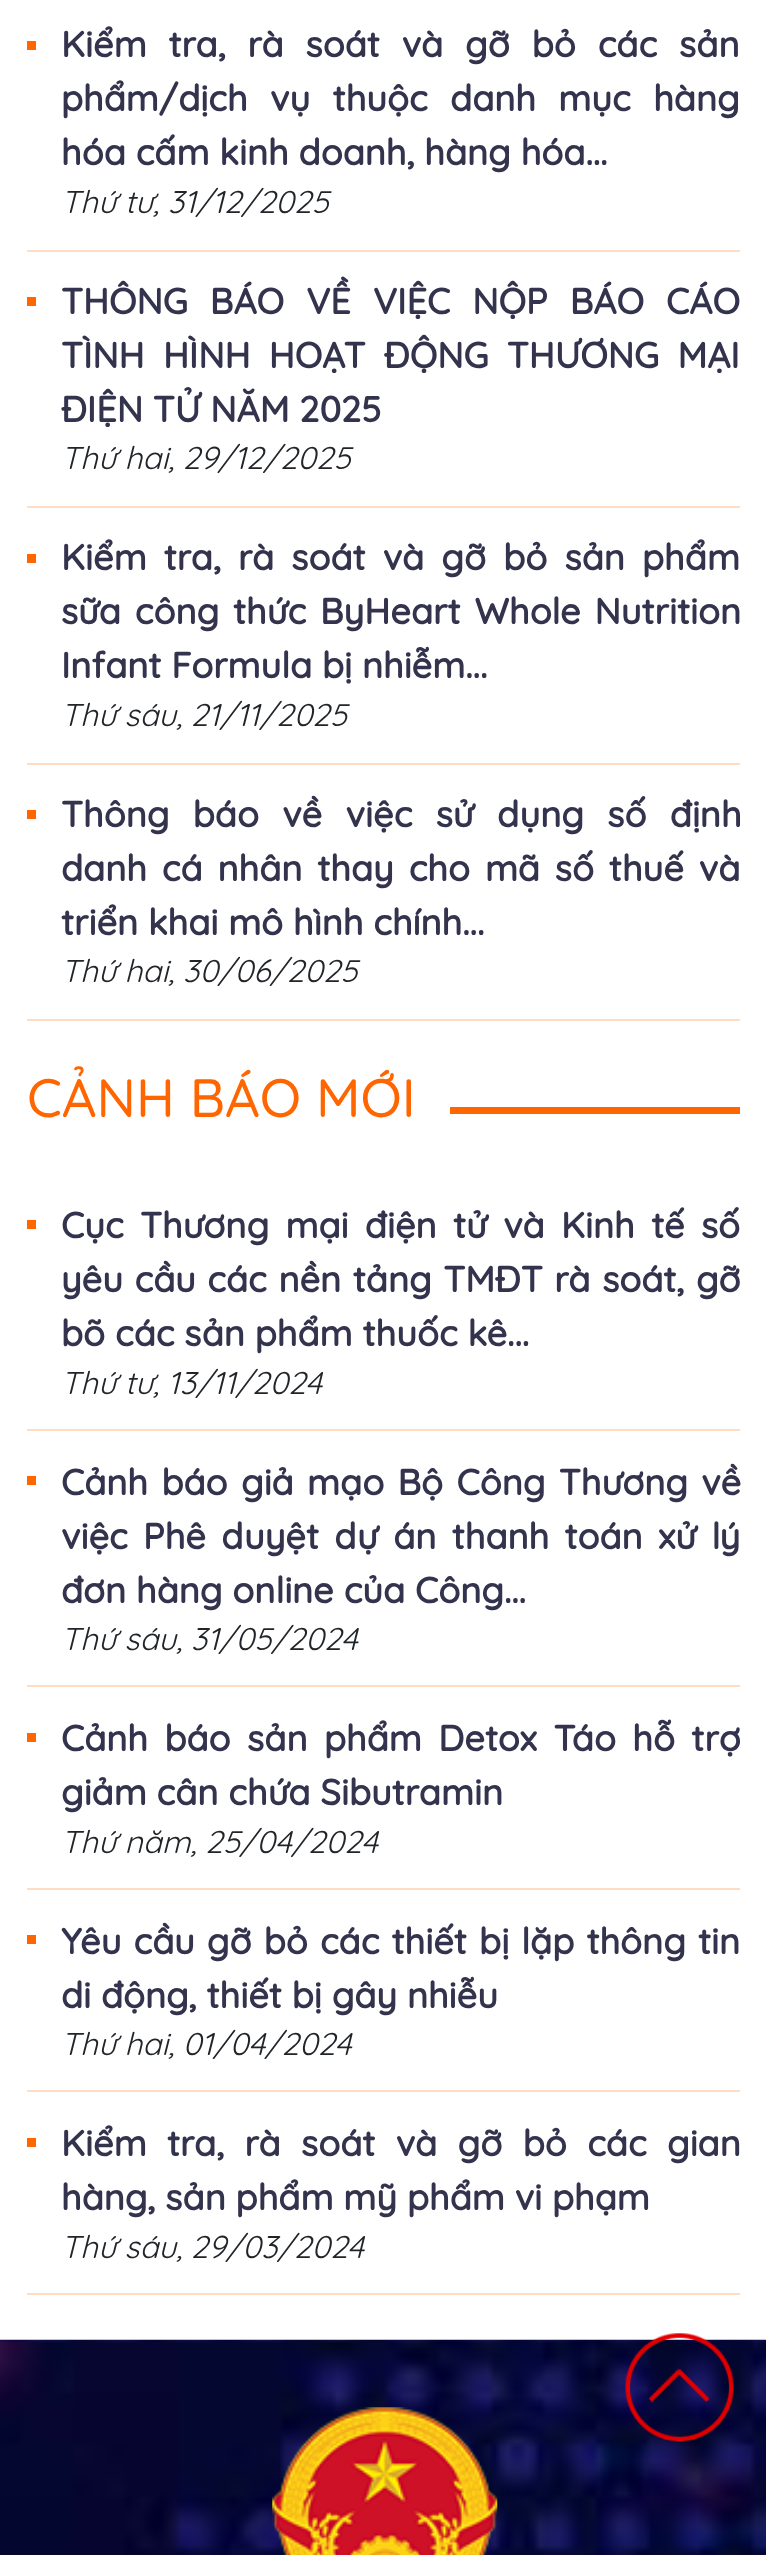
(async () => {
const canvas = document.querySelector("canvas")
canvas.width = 766
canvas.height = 2555
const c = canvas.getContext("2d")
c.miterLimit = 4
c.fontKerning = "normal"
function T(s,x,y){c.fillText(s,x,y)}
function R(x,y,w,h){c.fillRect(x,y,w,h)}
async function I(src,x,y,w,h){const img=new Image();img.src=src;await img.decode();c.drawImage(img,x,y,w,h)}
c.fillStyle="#fff"
R(0,0,766,2555)
c.fillStyle="#ffdcc4"
R(27,250,713,2)
c.fillStyle="#f60"
R(27,41,9,9)
c.wordSpacing="12px"
c.font="bold 36px Quicksand"
c.fillStyle="#33334d"
T("Kiểm tra, rà soát và gỡ bỏ các sản",61,57)
c.wordSpacing="12.5px"
T("phẩm/dịch vụ thuộc danh mục hàng",61,111)
c.wordSpacing="0px"
T("hóa cấm kinh doanh, hàng hóa...",61,165)
c.font="italic 31.5px Quicksand"
c.fillStyle="#212529"
T("Thứ tư, 31/12/2025",61,213)
c.fillStyle="#ffdcc4"
R(27,506,713,2)
c.fillStyle="#f60"
R(27,297,9,9)
c.wordSpacing="12.25px"
c.font="bold 36px Quicksand"
c.fillStyle="#33334d"
T("THÔNG BÁO VỀ VIỆC NỘP BÁO CÁO",61,314)
c.wordSpacing="8.5px"
T("TÌNH HÌNH HOẠT ĐỘNG THƯƠNG MẠI",61,368)
c.wordSpacing="0px"
T("ĐIỆN TỬ NĂM 2025",61,422)
c.font="italic 31.5px Quicksand"
c.fillStyle="#212529"
T("Thứ hai, 29/12/2025",61,469)
c.fillStyle="#ffdcc4"
R(27,763,713,2)
c.fillStyle="#f60"
R(27,554,9,9)
c.wordSpacing="7.25px"
c.font="bold 36px Quicksand"
c.fillStyle="#33334d"
T("Kiểm tra, rà soát và gỡ bỏ sản phẩm",61,570)
c.wordSpacing="4px"
T("sữa công thức ByHeart Whole Nutrition",61,624)
c.wordSpacing="0px"
T("Infant Formula bị nhiễm...",61,678)
c.font="italic 31.5px Quicksand"
c.fillStyle="#212529"
T("Thứ sáu, 21/11/2025",61,726)
c.fillStyle="#ffdcc4"
R(27,1019,713,2)
c.fillStyle="#f60"
R(27,810,9,9)
c.wordSpacing="13.5px"
c.font="bold 36px Quicksand"
c.fillStyle="#33334d"
T("Thông báo về việc sử dụng số định",61,827)
c.wordSpacing="5px"
T("danh cá nhân thay cho mã số thuế và",61,881)
c.wordSpacing="0px"
T("triển khai mô hình chính...",61,935)
c.font="italic 31.5px Quicksand"
c.fillStyle="#212529"
T("Thứ hai, 30/06/2025",61,982)
c.font="500 54px Quicksand"
c.fillStyle="#f60"
T("CẢNH BÁO MỚI",27,1117)
R(450,1107,290,7)
c.fillStyle="#ffdcc4"
R(27,1429,713,2)
c.fillStyle="#f60"
R(27,1220,9,9)
c.wordSpacing="6.5px"
c.font="bold 36px Quicksand"
c.fillStyle="#33334d"
T("Cục Thương mại điện tử và Kinh tế số",61,1238)
c.wordSpacing="1.75px"
T("yêu cầu các nền tảng TMĐT rà soát, gỡ",61,1292)
c.wordSpacing="0px"
T("bõ các sản phẩm thuốc kê...",61,1346)
c.font="italic 31.5px Quicksand"
c.fillStyle="#212529"
T("Thứ tư, 13/11/2024",61,1394)
c.fillStyle="#ffdcc4"
R(27,1685,713,2)
c.fillStyle="#f60"
R(27,1476,9,9)
c.wordSpacing="3.5px"
c.font="bold 36px Quicksand"
c.fillStyle="#33334d"
T("Cảnh báo giả mạo Bộ Công Thương về",61,1495)
c.wordSpacing="5.5px"
T("việc Phê duyệt dự án thanh toán xử lý",61,1549)
c.wordSpacing="0px"
T("đơn hàng online của Công...",61,1603)
c.font="italic 31.5px Quicksand"
c.fillStyle="#212529"
T("Thứ sáu, 31/05/2024",61,1650)
c.fillStyle="#ffdcc4"
R(27,1888,713,2)
c.fillStyle="#f60"
R(27,1733,9,9)
c.wordSpacing="6.5px"
c.font="bold 36px Quicksand"
c.fillStyle="#33334d"
T("Cảnh báo sản phẩm Detox Táo hỗ trợ",61,1751)
c.wordSpacing="0px"
T("giảm cân chứa Sibutramin",61,1805)
c.font="italic 31.5px Quicksand"
c.fillStyle="#212529"
T("Thứ năm, 25/04/2024",61,1853)
c.fillStyle="#ffdcc4"
R(27,2090,713,2)
c.fillStyle="#f60"
R(27,1935,9,9)
c.wordSpacing="2.25px"
c.font="bold 36px Quicksand"
c.fillStyle="#33334d"
T("Yêu cầu gỡ bỏ các thiết bị lặp thông tin",61,1954)
c.wordSpacing="0px"
T("di động, thiết bị gây nhiễu",61,2008)
c.font="italic 31.5px Quicksand"
c.fillStyle="#212529"
T("Thứ hai, 01/04/2024",61,2055)
c.fillStyle="#ffdcc4"
R(27,2293,713,2)
c.fillStyle="#f60"
R(27,2138,9,9)
c.wordSpacing="10.5px"
c.font="bold 36px Quicksand"
c.fillStyle="#33334d"
T("Kiểm tra, rà soát và gỡ bỏ các gian",61,2156)
c.wordSpacing="0px"
T("hàng, sản phẩm mỹ phẩm vi phạm",61,2210)
c.font="italic 31.5px Quicksand"
c.fillStyle="#212529"
T("Thứ sáu, 29/03/2024",61,2258)
await I("2.png",0,2339,766,216)
await I("1.png",625,2333,109,109)
await I("3.png",272,2407,226,148)
})()
